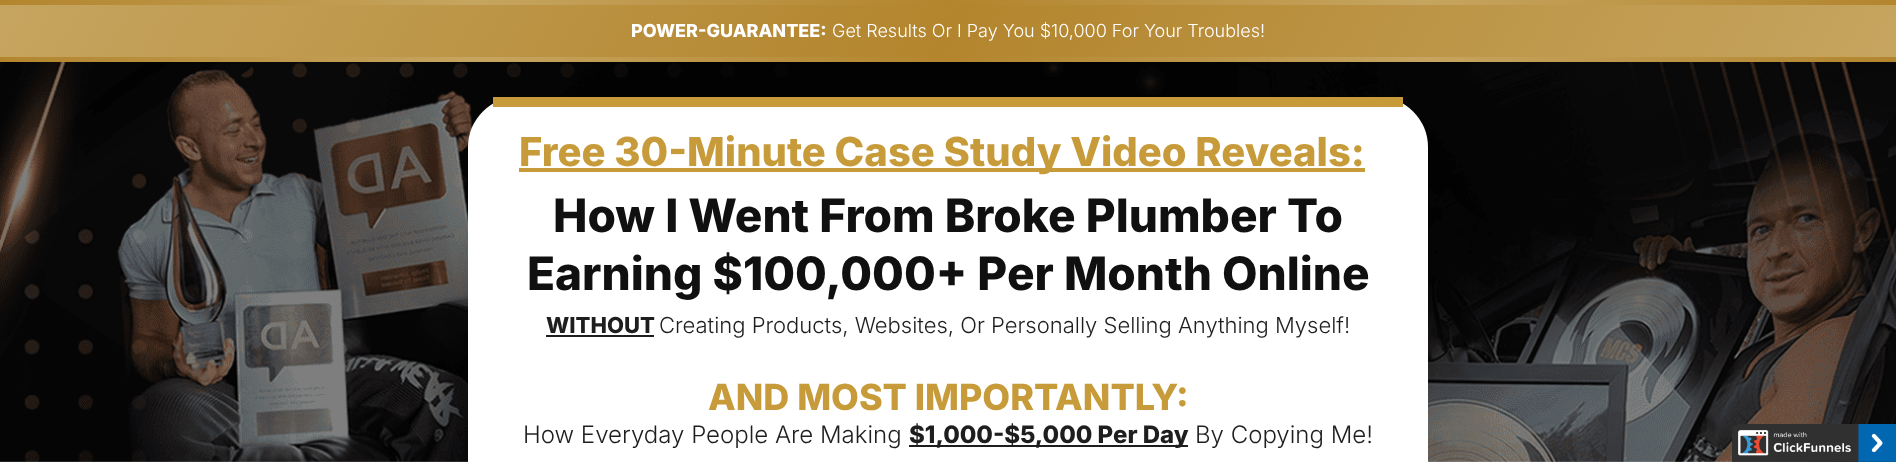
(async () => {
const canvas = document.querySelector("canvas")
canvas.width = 1896
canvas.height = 462
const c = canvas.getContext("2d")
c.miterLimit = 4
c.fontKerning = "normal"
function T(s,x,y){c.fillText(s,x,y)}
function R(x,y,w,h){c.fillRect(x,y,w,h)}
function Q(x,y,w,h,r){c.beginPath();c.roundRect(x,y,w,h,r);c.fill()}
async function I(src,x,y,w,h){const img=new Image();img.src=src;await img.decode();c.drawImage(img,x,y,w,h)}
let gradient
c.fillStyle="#fff"
R(0,0,1896,462)
await I("1.png",0,62,1896,400)
gradient = c.createLinearGradient(226,-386,1670,448)
gradient.addColorStop(0,"#c6a560")
gradient.addColorStop(.5,"#b3852d")
gradient.addColorStop(1,"#c6a560")
c.fillStyle = gradient
R(0,5,1896,52)
await I("2.png",0,0,1896,62)
c.font="800 18px Inter"
c.fillStyle="#fff"
T("POWER-GUARANTEE:",631,37)
c.font="300 18px Inter"
T("Get Results Or I Pay You $10,000 For Your Troubles!",832,37)
Q(468,97,960,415,50)
c.fillStyle="#c79b3a"
R(493,97,910,10)
R(519,168,846,4)
c.font="800 40px Inter"
T("Free 30-Minute Case Study Video Reveals:",519,166)
c.font="800 46px Inter"
c.fillStyle="#101010"
T("How I Went From Broke Plumber To",553,232)
T("Earning $100,000+ Per Month Online",527,290)
c.font="800 22px Inter"
c.fillStyle="#1e1e1e"
T("WITHOUT",546,333)
R(546,335,108,2)
c.font="300 22px Inter"
T("Creating Products, Websites, Or Personally Selling Anything Myself!",659,333)
c.font="800 36px Inter"
c.fillStyle="#c79b3a"
T("AND MOST IMPORTANTLY:",708,410)
c.font="300 24px Inter"
c.fillStyle="#1e1e1e"
T("How Everyday People Are Making",523,443)
R(909,445,279,2)
c.font="800 24px Inter"
T("$1,000-$5,000 Per Day",909,443)
c.font="300 24px Inter"
T("By Copying Me!",1195,443)
await I("3.png",1732,424,164,38)
})()
